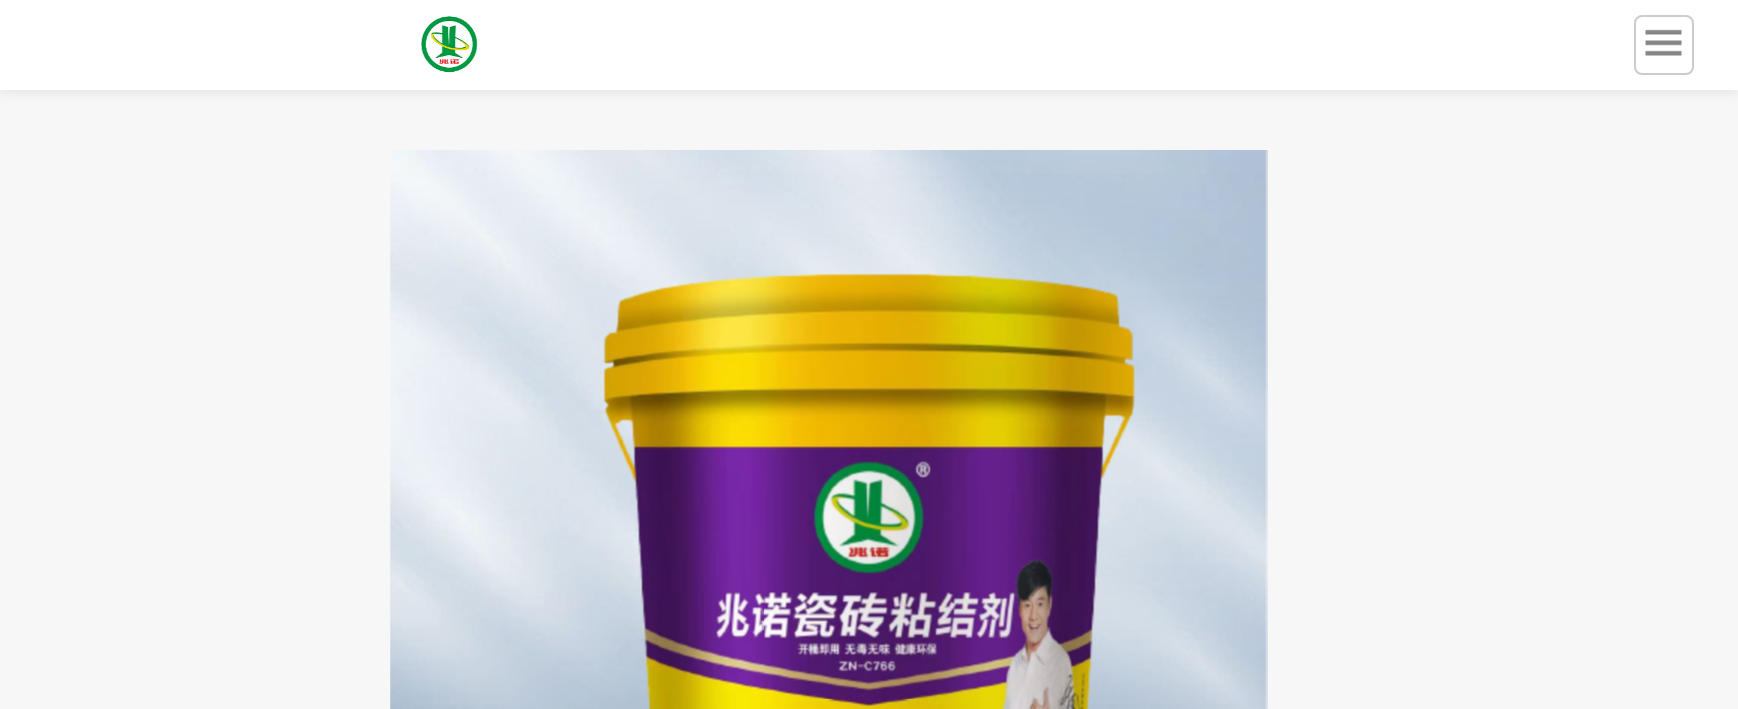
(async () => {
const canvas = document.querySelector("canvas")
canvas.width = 1738
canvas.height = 709
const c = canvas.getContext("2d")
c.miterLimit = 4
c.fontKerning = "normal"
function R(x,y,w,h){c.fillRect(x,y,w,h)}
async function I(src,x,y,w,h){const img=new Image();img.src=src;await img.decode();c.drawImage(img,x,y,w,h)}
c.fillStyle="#f7f7f7"
R(0,0,1738,709)
c.fillStyle="#0000001a"
c.filter="blur(7.5px)"
c.beginPath()
c.rect(0,0,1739,90)
c.fill()
c.filter="none"
c.fillStyle="#fff"
R(0,0,1738,90)
await I("1.png",421,16,57,57)
c.beginPath()
c.roundRect(1635,16,58,58,7)
c.strokeStyle="#ccc"
c.lineWidth=2
c.stroke()
await I("2.png",1645,29,37,27)
await I("3.png",390,150,878,559)
await I("4.png",603,273,532,436)
})()
